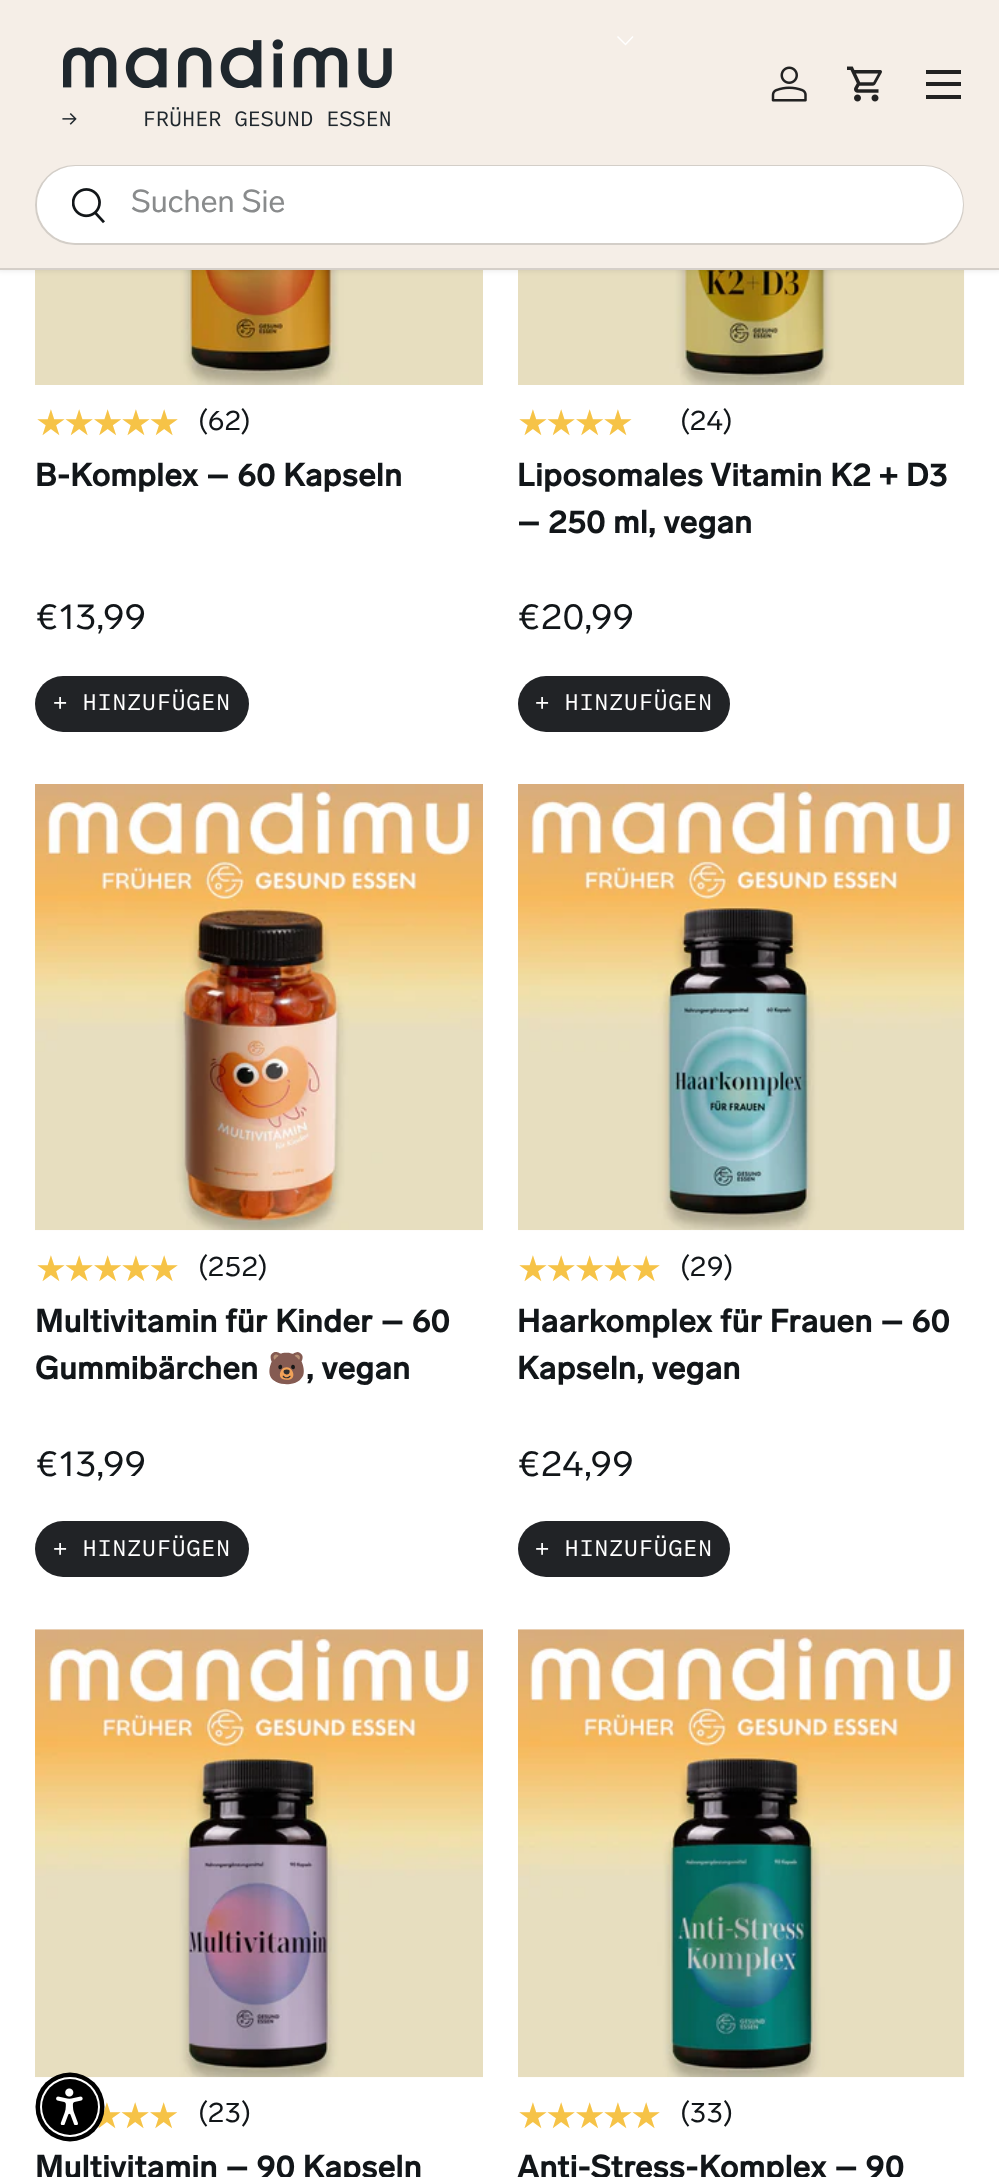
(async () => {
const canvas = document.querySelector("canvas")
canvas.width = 999
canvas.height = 2177
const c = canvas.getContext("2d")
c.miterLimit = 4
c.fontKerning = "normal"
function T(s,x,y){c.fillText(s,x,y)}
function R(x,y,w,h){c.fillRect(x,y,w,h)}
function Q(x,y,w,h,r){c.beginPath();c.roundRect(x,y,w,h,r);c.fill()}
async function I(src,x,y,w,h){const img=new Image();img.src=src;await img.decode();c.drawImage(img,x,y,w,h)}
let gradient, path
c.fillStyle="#fff"
R(0,0,999,2177)
await I("5.png",35,270,448,115)
await I("6.png",518,270,447,115)
c.fillStyle="#00000014"
c.filter="blur(2.5px)"
c.beginPath()
c.rect(-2,-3,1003,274)
c.fill()
c.filter="none"
c.fillStyle="#f5eee7"
R(0,0,999,268)
path = new Path2D("M633 36.5l-7.5 8l-8-8")
c.strokeStyle="#fff"
c.lineWidth=1.5
c.stroke(path)
await I("1.png",62,39,330,88)
await I("2.png",771,66,36,36)
await I("3.png",847,66,35,36)
c.fillStyle="#222"
R(926,70,35,4)
R(926,95,35,4)
R(926,82,35,4)
c.beginPath()
c.roundRect(36,166,927,78,39)
c.strokeStyle="#d3cec8"
c.lineWidth=2
c.stroke()
c.fillStyle="#fff"
Q(37,166,926,77,38.5)
await I("4.png",72,188,33,36)
c.font="31.5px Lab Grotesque"
c.fillStyle="#898b8c"
T("Suchen Sie",131,212)
c.fillStyle="#d5cfc9"
R(0,268,999,2)
c.letterSpacing="-3.5px"
c.font="35.5px DejaVu Sans"
gradient = c.createLinearGradient(35,423,178,423)
gradient.addColorStop(1,"#f6c347")
gradient.addColorStop(1,"#fdf3da")
c.fillStyle = gradient
T("★★★★★",35,435)
c.letterSpacing="0.6px"
c.font="28px Lab Grotesque"
c.fillStyle="#121619"
T("(62)",198,430)
c.font="bold 31.5px Lab Grotesque"
T("B-Komplex – 60 Kapseln",35,486)
c.font="36px Lab Grotesque"
T("€13,99",35,629)
gradient = c.createLinearGradient(-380,627,236,780)
gradient.addColorStop(.6,"#494c4f")
gradient.addColorStop(.6,"#212326")
gradient.addColorStop(1,"#212326")
c.fillStyle = gradient
Q(35,676,214,56,28)
c.font="24.5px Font"
c.fillStyle="#fff"
T("+ HINZUFÜGEN",53,710)
c.letterSpacing="-3.5px"
c.font="35.5px DejaVu Sans"
gradient = c.createLinearGradient(517,423,658,423)
gradient.addColorStop(.91,"#f6c347")
gradient.addColorStop(.91,"#fdf3da")
c.fillStyle = gradient
T("★★★★",517,435)
c.letterSpacing="0.6px"
c.font="28px Lab Grotesque"
c.fillStyle="#121619"
T("(24)",680,430)
c.font="bold 31.5px Lab Grotesque"
T("Liposomales Vitamin K2 + D3",517,486)
T("– 250 ml, vegan",517,533)
c.font="36px Lab Grotesque"
T("€20,99",517,629)
gradient = c.createLinearGradient(107,627,718,780)
gradient.addColorStop(.6,"#494c4f")
gradient.addColorStop(.6,"#212326")
gradient.addColorStop(1,"#212326")
c.fillStyle = gradient
Q(518,676,212,56,28)
c.font="24.5px Font"
c.fillStyle="#fff"
T("+ HINZUFÜGEN",535,710)
await I("7.png",35,784,448,447)
c.letterSpacing="-3.5px"
c.font="35.5px DejaVu Sans"
gradient = c.createLinearGradient(35,1269,178,1269)
gradient.addColorStop(1,"#f6c347")
gradient.addColorStop(1,"#fdf3da")
c.fillStyle = gradient
T("★★★★★",35,1281)
c.letterSpacing="0.6px"
c.font="28px Lab Grotesque"
c.fillStyle="#121619"
T("(252)",198,1276)
c.font="bold 31.5px Lab Grotesque"
T("Multivitamin für Kinder – 60",35,1332)
T("Gummibärchen",35,1379)
c.font="bold 31.5px Noto Color Emoji"
T("🐻",267,1379)
c.font="bold 31.5px Lab Grotesque"
T(", vegan",306,1379)
c.font="36px Lab Grotesque"
T("€13,99",35,1476)
gradient = c.createLinearGradient(-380,1472,236,1626)
gradient.addColorStop(.6,"#494c4f")
gradient.addColorStop(.6,"#212326")
gradient.addColorStop(1,"#212326")
c.fillStyle = gradient
Q(35,1521,214,56,28)
c.font="24.5px Font"
c.fillStyle="#fff"
T("+ HINZUFÜGEN",53,1556)
await I("8.png",518,784,447,447)
c.letterSpacing="-3.5px"
c.font="35.5px DejaVu Sans"
gradient = c.createLinearGradient(517,1269,660,1269)
gradient.addColorStop(1,"#f6c347")
gradient.addColorStop(1,"#fdf3da")
c.fillStyle = gradient
T("★★★★★",517,1281)
c.letterSpacing="0.6px"
c.font="28px Lab Grotesque"
c.fillStyle="#121619"
T("(29)",680,1276)
c.font="bold 31.5px Lab Grotesque"
T("Haarkomplex für Frauen – 60",517,1332)
T("Kapseln, vegan",517,1379)
c.font="36px Lab Grotesque"
T("€24,99",517,1476)
gradient = c.createLinearGradient(107,1473,718,1625)
gradient.addColorStop(.6,"#494c4f")
gradient.addColorStop(.6,"#212326")
gradient.addColorStop(1,"#212326")
c.fillStyle = gradient
Q(518,1521,212,56,28)
c.font="24.5px Font"
c.fillStyle="#fff"
T("+ HINZUFÜGEN",535,1556)
await I("9.png",35,1629,448,449)
c.letterSpacing="-3.5px"
c.font="35.5px DejaVu Sans"
gradient = c.createLinearGradient(35,2115,178,2115)
gradient.addColorStop(1,"#f6c347")
gradient.addColorStop(1,"#fdf3da")
c.fillStyle = gradient
T("★★★",91,2128)
c.letterSpacing="0.6px"
c.font="28px Lab Grotesque"
c.fillStyle="#121619"
T("(23)",198,2122)
c.font="bold 31.5px Lab Grotesque"
T("Multivitamin – 90 Kapseln",35,2178)
await I("10.png",518,1629,447,449)
c.letterSpacing="-3.5px"
c.font="35.5px DejaVu Sans"
gradient = c.createLinearGradient(517,2115,660,2115)
gradient.addColorStop(1,"#f6c347")
gradient.addColorStop(1,"#fdf3da")
c.fillStyle = gradient
T("★★★★★",517,2128)
c.letterSpacing="0.6px"
c.font="28px Lab Grotesque"
c.fillStyle="#121619"
T("(33)",680,2122)
c.font="bold 31.5px Lab Grotesque"
T("Anti-Stress-Komplex – 90",517,2178)
c.fillStyle="#000"
c.beginPath()
c.arc(70,2107,34.5,0,7)
c.fill()
c.fillStyle="#fff"
c.beginPath()
c.arc(70,2107,30,0,7)
c.fill()
c.fillStyle="#000"
c.beginPath()
c.arc(70,2107,28,0,7)
c.fill()
await I("11.png",56,2088,27,37)
})()
